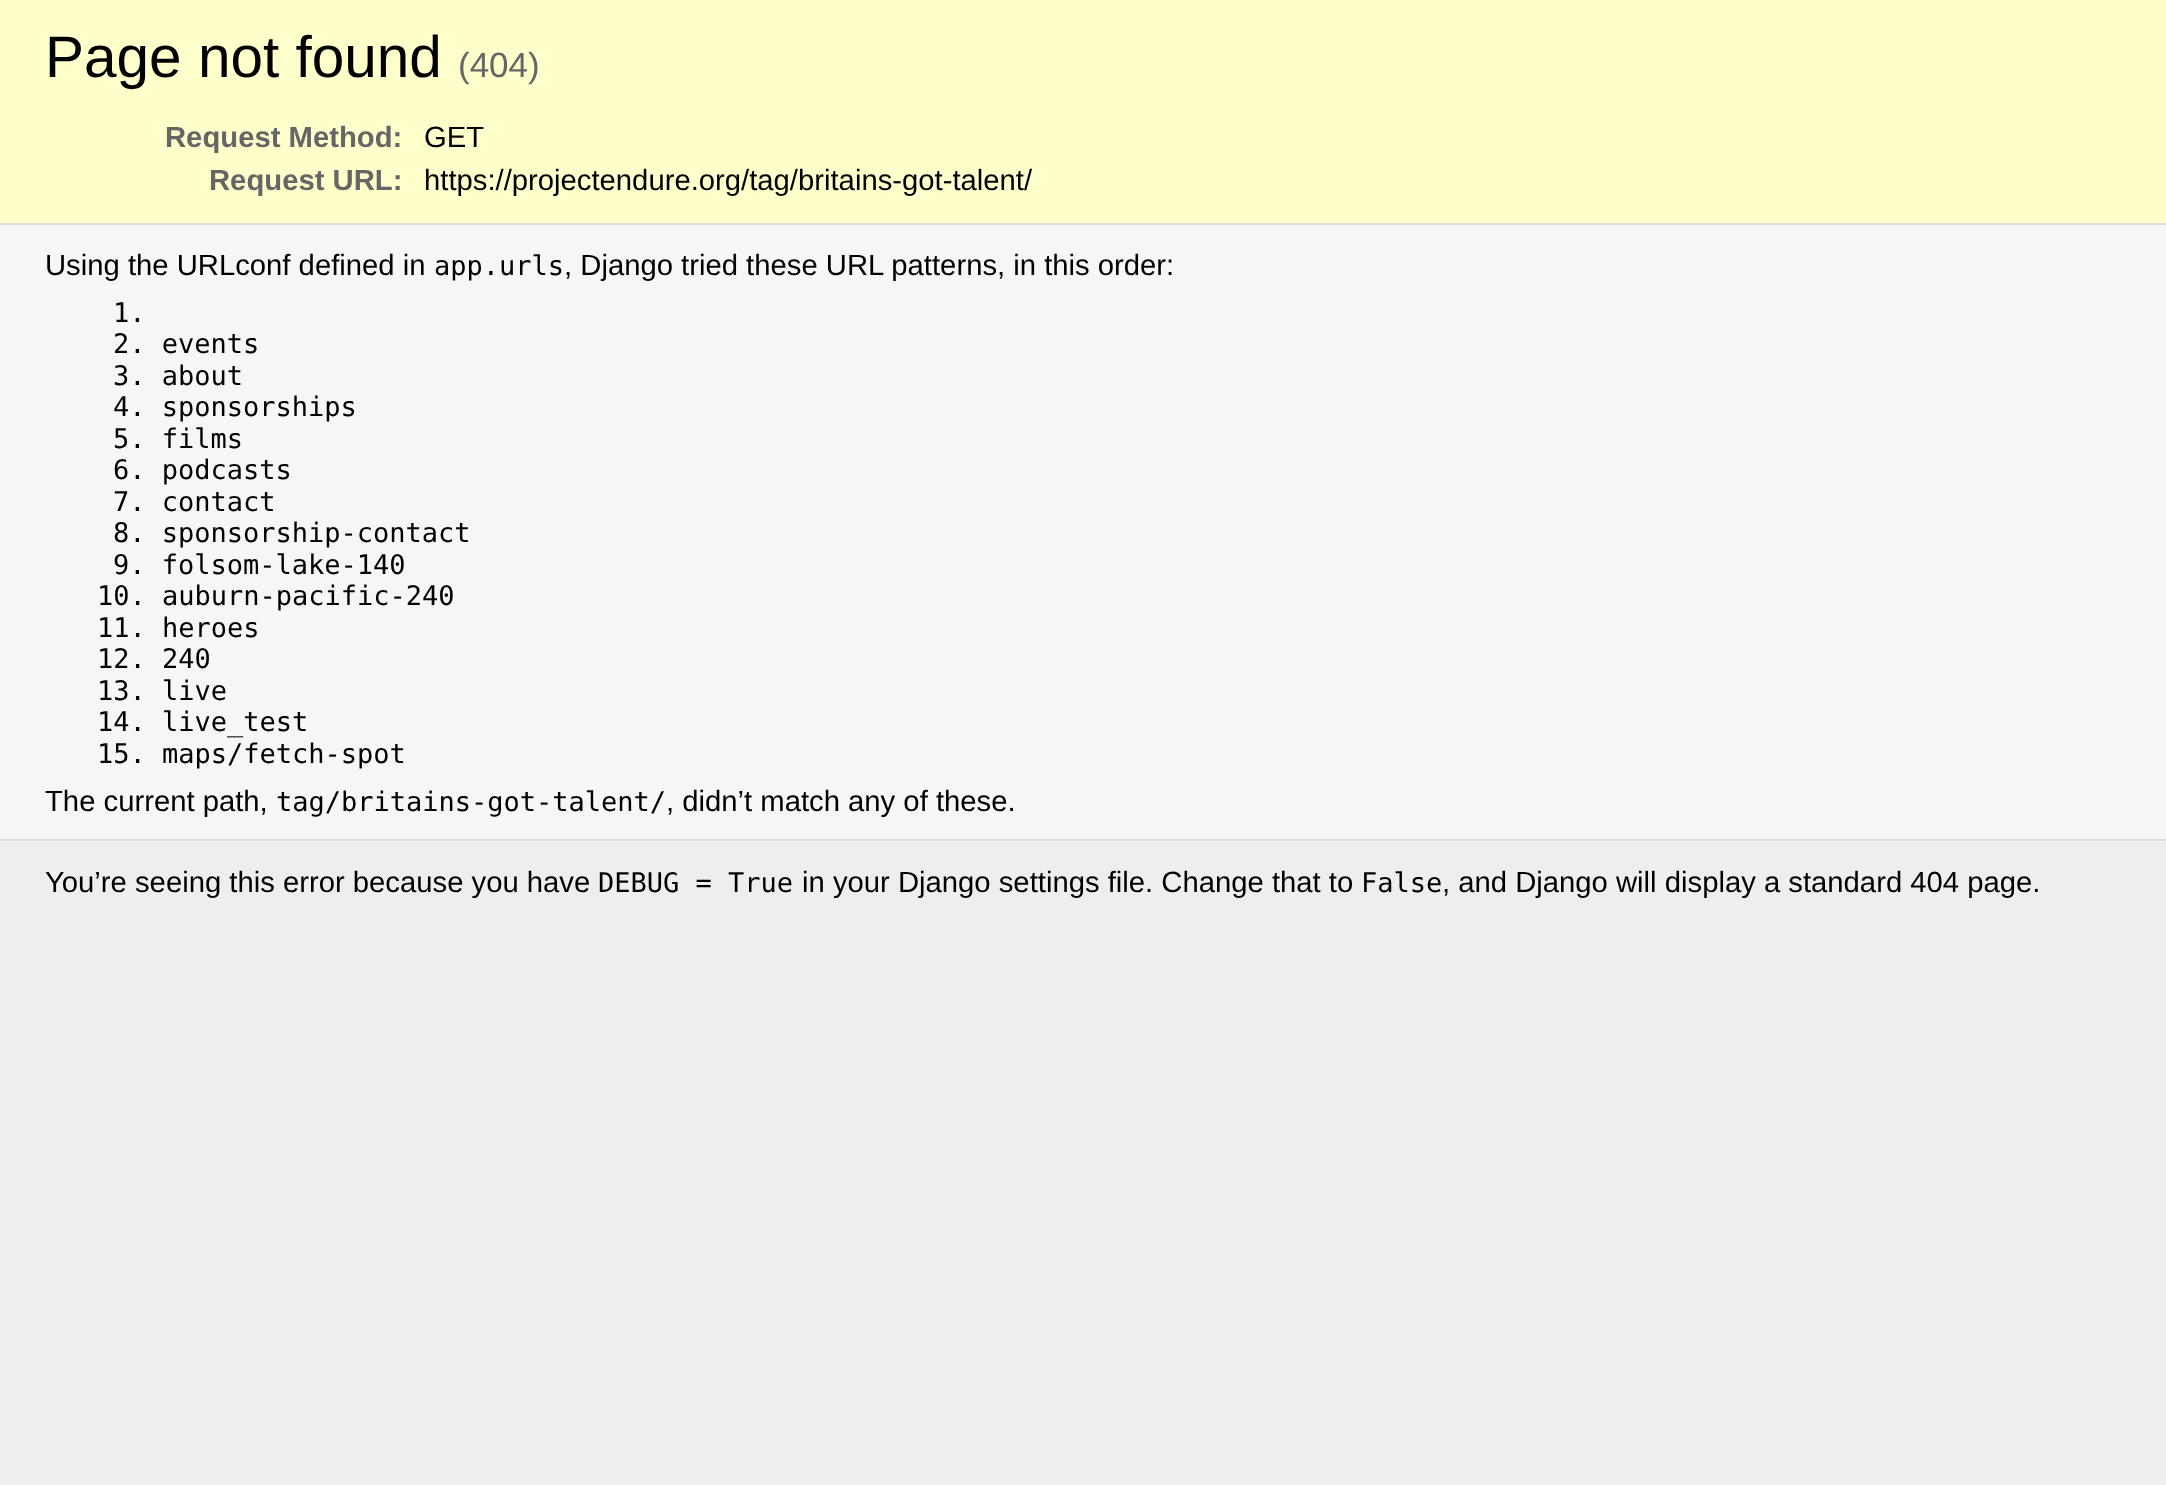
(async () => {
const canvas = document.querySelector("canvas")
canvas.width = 2166
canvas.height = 1485
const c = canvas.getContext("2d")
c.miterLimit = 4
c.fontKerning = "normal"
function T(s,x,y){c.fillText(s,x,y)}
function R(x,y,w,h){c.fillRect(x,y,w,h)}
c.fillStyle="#eee"
R(0,0,2166,1485)
c.fillStyle="#ffc"
R(0,0,2166,223)
c.fillStyle="#ddd"
R(0,223,2166,2)
c.font="58.5px Liberation Sans"
c.fillStyle="#000"
T("Page not found",45,77)
c.font="35px Liberation Sans"
c.fillStyle="#666"
T("(404)",458,77)
c.font="bold 29.25px Liberation Sans"
T("Request Method:",165,147)
c.font="29.25px Liberation Sans"
c.fillStyle="#000"
T("GET",424,147)
c.font="bold 29.25px Liberation Sans"
c.fillStyle="#666"
T("Request URL:",209,190)
c.font="29.25px Liberation Sans"
c.fillStyle="#000"
T("https://projectendure.org/tag/britains-got-talent/",424,190)
c.fillStyle="#f6f6f6"
R(0,225,2166,617)
c.fillStyle="#ddd"
R(0,839,2166,2)
c.fillStyle="#000"
T("Using the URLconf defined in",45,275)
c.font="27px DejaVu Sans Mono"
T("app.urls",434,275)
c.font="29.25px Liberation Sans"
T(", Django tried these URL patterns, in this order:",564,275)
c.font="27px DejaVu Sans Mono"
T("1.",113,322)
T("2. events",113,353)
T("3. about",113,385)
T("4. sponsorships",113,416)
T("5. films",113,448)
T("6. podcasts",113,479)
T("7. contact",113,511)
T("8. sponsorship-contact",113,542)
T("9. folsom-lake-140",113,574)
T("10. auburn-pacific-240",97,605)
T("11. heroes",97,637)
T("12. 240",97,668)
T("13. live",97,700)
T("14. live_test",97,731)
T("15. maps/fetch-spot",97,763)
c.font="29.25px Liberation Sans"
T("The current path,",45,811)
c.font="27px DejaVu Sans Mono"
T("tag/britains-got-talent/",276,811)
c.font="29.25px Liberation Sans"
T(", didn’t match any of these.",666,811)
T("You’re seeing this error because you have",45,892)
c.font="27px DejaVu Sans Mono"
T("DEBUG = True",598,892)
c.font="29.25px Liberation Sans"
T("in your Django settings file. Change that to",802,892)
c.font="27px DejaVu Sans Mono"
T("False",1361,892)
c.font="29.25px Liberation Sans"
T(", and Django will display a standard 404 page.",1442,892)
})()
